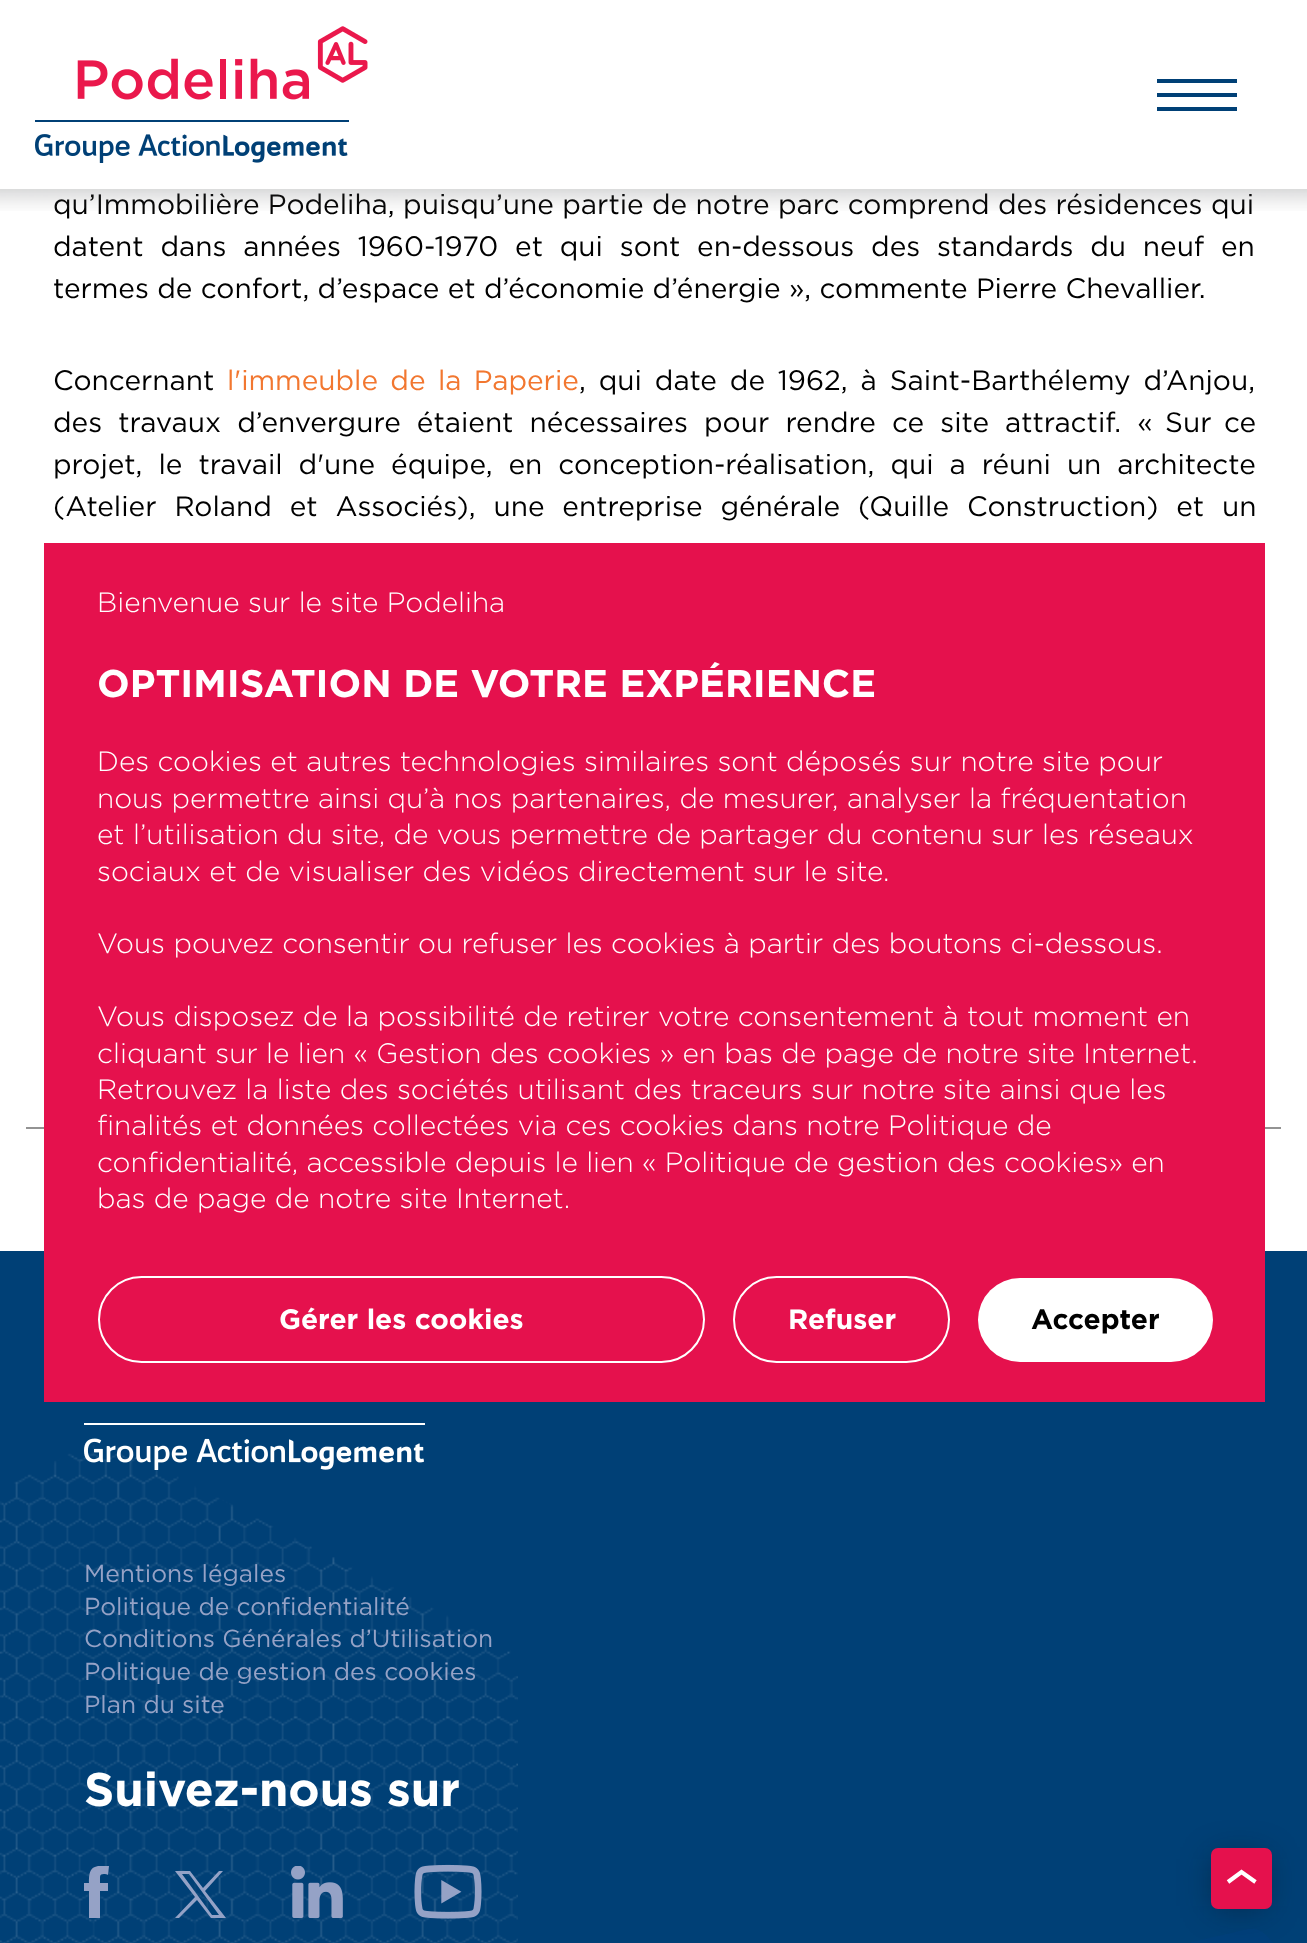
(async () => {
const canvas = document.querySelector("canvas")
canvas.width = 1307
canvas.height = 1943
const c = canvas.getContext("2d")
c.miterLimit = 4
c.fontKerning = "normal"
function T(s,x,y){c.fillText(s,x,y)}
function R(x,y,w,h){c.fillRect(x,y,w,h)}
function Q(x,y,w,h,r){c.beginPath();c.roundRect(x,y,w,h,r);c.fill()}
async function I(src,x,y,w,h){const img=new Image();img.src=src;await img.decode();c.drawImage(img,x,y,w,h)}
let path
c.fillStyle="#fff"
R(0,0,1307,1943)
await I("1.png",35,26,333,137)
c.fillStyle="#004076"
R(1157,79,80,4)
R(1157,93,80,4)
R(1157,107,80,4)
c.font="28px Gotham"
c.fillStyle="#000"
T("qu’Immobilière Podeliha, puisqu’une partie de notre parc comprend des résidences qui",53,214)
await I("2.png",0,189,1307,22)
c.wordSpacing="8.4px"
T("datent dans années 1960-1970 et qui sont en-dessous des standards du neuf en",53,256)
c.wordSpacing="0px"
T("termes de confort, d’espace et d’économie d’énergie », commente Pierre Chevallier.",53,298)
T("Concernant",53,390)
c.wordSpacing="4px"
c.fillStyle="#f27730"
T("l'immeuble de la Paperie",227,390)
c.wordSpacing="4.5px"
c.fillStyle="#000"
T(", qui date de 1962, à Saint-Barthélemy d’Anjou,",579,390)
c.wordSpacing="7.75px"
T("des travaux d’envergure étaient nécessaires pour rendre ce site attractif. «",53,432)
T("Sur",1165,432)
T("ce",1224,432)
c.wordSpacing="7.6px"
T("projet, le travail d'une équipe, en conception-réalisation, qui a réuni un architecte",53,474)
c.wordSpacing="9.5px"
T("(Atelier Roland et Associés), une entreprise générale (Quille Construction) et un",53,516)
c.fillStyle="#939393"
R(26,1127,1255,2)
c.fillStyle="#004076"
R(0,1251,1307,692)
await I("3.png",0,1445,518,498)
await I("4.png",84,1423,341,47)
c.wordSpacing="0px"
c.font="24.5px Gotham"
c.fillStyle="#95a2c6"
T("Mentions légales",84,1582)
T("Politique de confidentialité",84,1615)
T("Conditions Générales d’Utilisation",84,1647)
T("Politique de gestion des cookies",84,1680)
T("Plan du site",84,1713)
c.font="bold 47.25px Gotham"
c.fillStyle="#fff"
T("Suivez-nous sur",84,1806)
c.fillStyle="#95a2c6"
path = new Path2D("M100 1877c0-4 6-3 8-2l1-9h-9c-11 0-11 9-11 17h-5v8h5v27h11v-27h8v-8h-8z")
c.fill(path)
c.fillStyle="#94a2c6"
path = new Path2D("M175 1871l20 26l-20 21h4l18-18l14 18h15l-21-27l18-20h-4l-16 17l-13-17zm7 3h7l30 41h-7z")
c.fill(path)
await I("5.png",291,1866,52,52)
await I("6.png",414,1864,68,55)
await I("7.png",1191,1929,82,14)
c.fillStyle="#050b1480"
c.filter="blur(17.5px)"
c.beginPath()
c.rect(1216,1859,48,47)
c.fill()
c.filter="none"
c.fillStyle="#e5114d"
Q(1211,1848,61,61,7)
path = new Path2D("M1228 1882l13.5-10l14 10")
c.strokeStyle="#fff"
c.lineWidth=4.1
c.stroke(path)
R(44,543,1221,859)
c.font="300 28px Gotham"
c.fillStyle="#fff"
T("Bienvenue sur le site Podeliha",97,612)
c.font="bold 38.5px Gotham"
T("OPTIMISATION DE VOTRE EXPÉRIENCE",97,697)
c.font="300 28px Gotham"
T("Des cookies et autres technologies similaires sont déposés sur notre site pour",97,771)
T("nous permettre ainsi qu’à nos partenaires, de mesurer, analyser la fréquentation",97,808)
T("et l’utilisation du site, de vous permettre de partager du contenu sur les réseaux",97,844)
T("sociaux et de visualiser des vidéos directement sur le site.",97,881)
T("Vous pouvez consentir ou refuser les cookies à partir des boutons ci-dessous.",97,953)
T("Vous disposez de la possibilité de retirer votre consentement à tout moment en",97,1026)
T("cliquant sur le lien « Gestion des cookies » en bas de page de notre site Internet.",97,1063)
T("Retrouvez la liste des sociétés utilisant des traceurs sur notre site ainsi que les",97,1099)
T("finalités et données collectées via ces cookies dans notre Politique de",97,1135)
T("confidentialité, accessible depuis le lien « Politique de gestion des cookies» en",97,1172)
T("bas de page de notre site Internet.",97,1208)
c.beginPath()
c.roundRect(99,1277,605,85,42.5)
c.lineWidth=2
c.stroke()
c.font="bold 28px Gotham"
T("Gérer les cookies",279,1329)
c.beginPath()
c.roundRect(734,1277,215,85,42.5)
c.stroke()
T("Refuser",788,1329)
Q(978,1278,235,84,42)
c.fillStyle="#000"
T("Accepter",1031,1329)
})()
